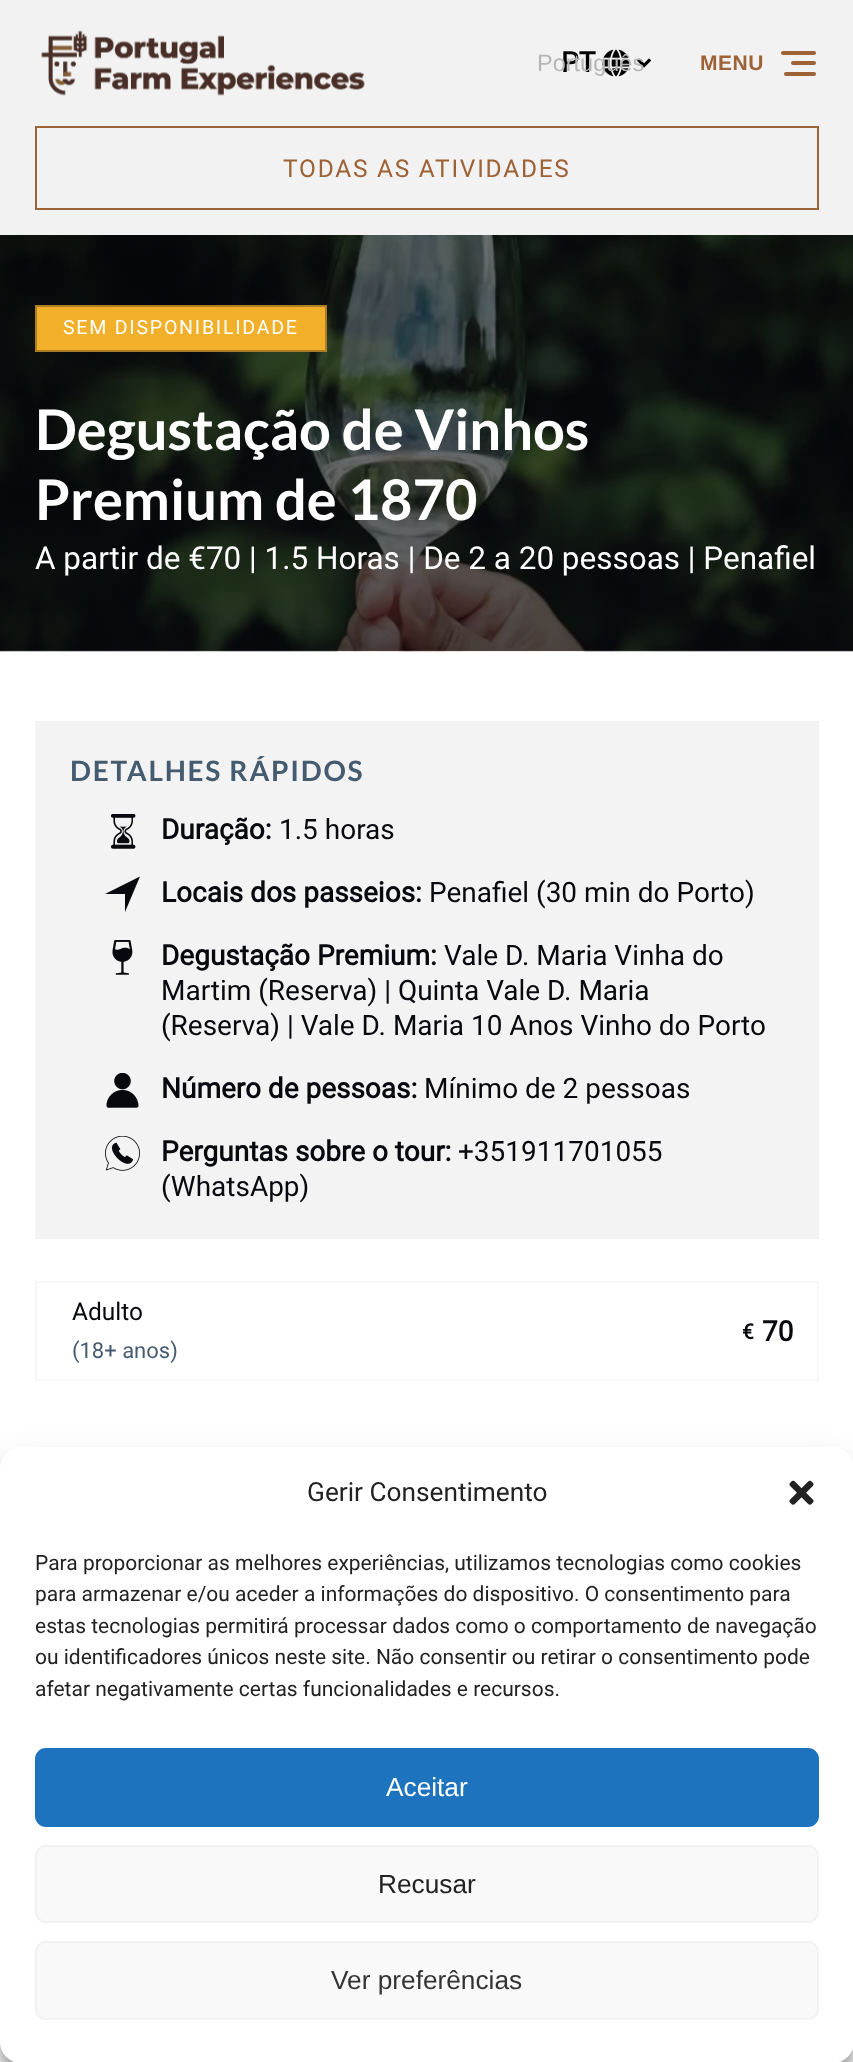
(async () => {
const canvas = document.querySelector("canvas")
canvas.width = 853
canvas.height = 2062
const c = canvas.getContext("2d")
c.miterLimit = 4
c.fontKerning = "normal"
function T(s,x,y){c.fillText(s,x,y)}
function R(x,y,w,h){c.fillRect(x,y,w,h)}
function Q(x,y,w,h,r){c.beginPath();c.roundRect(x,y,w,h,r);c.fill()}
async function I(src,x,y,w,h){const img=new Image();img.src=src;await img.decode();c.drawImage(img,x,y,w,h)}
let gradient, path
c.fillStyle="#fff"
R(0,0,853,2062)
c.fillStyle="#f2f2f2"
R(0,0,853,235)
await I("1.png",41,30,324,66)
c.font="bold 28px Roboto"
c.fillStyle="#000"
T("PT",561,72)
await I("2.png",602,49,28,28)
await I("3.png",637,58,14,10)
c.font="23.5px Liberation Sans"
c.fillStyle="#b6b6b6"
T("Português",537,71)
c.letterSpacing="0.5px"
c.font="bold 21px Liberation Sans"
c.fillStyle="#9e6237"
T("MENU",700,70)
Q(791,61,25,4,2)
Q(781,51,35,4,2)
Q(784,72,32,4,2)
c.strokeStyle="#9e6237"
c.lineWidth=2
c.strokeRect(36,127,782,82)
c.letterSpacing="1.75px"
c.font="24.5px Roboto"
T("TODAS AS ATIVIDADES",283,177)
await I("4.png",0,235,853,417)
gradient = c.createLinearGradient(427,651,427,235)
gradient.addColorStop(0,"#08090ead")
gradient.addColorStop(1,"#08090e85")
c.fillStyle = gradient
R(0,235,853,416)
c.fillStyle="#f2af29"
c.beginPath()
c.rect(36,306,290,45)
c.fill()
c.strokeStyle="#ac7d21"
c.stroke()
c.font="19.6px Roboto"
c.fillStyle="#fff"
T("SEM DISPONIBILIDADE",63,334)
c.letterSpacing="0px"
c.font="bold 56px Lato"
T("Degustação de Vinhos",35,450)
T("Premium de 1870",35,520)
c.font="31.5px Roboto"
T("A partir de €70 | 1.5 Horas | De 2 a 20 pessoas | Penafiel",35,569)
c.fillStyle="#f3f3f4"
R(35,721,784,518)
c.letterSpacing="1.75px"
c.font="bold 28px Lato"
c.fillStyle="#455b6f"
T("DETALHES RÁPIDOS",70,781)
await I("5.png",111,814,25,35)
c.letterSpacing="0px"
c.font="bold 28px Roboto"
c.fillStyle="#08090e"
T("Duração:",161,839)
c.font="28px Roboto"
T("1.5 horas",279,839)
path = new Path2D("M105 894l35-17.5l-15 35.5v-18z")
c.fill(path)
c.font="bold 28px Roboto"
T("Locais dos passeios:",161,902)
c.font="28px Roboto"
T("Penafiel (30 min do Porto)",429,902)
await I("6.png",112,940,21,35)
c.font="bold 28px Roboto"
T("Degustação Premium:",161,965)
c.font="28px Roboto"
T("Vale D. Maria Vinha do",444,965)
T("Martim (Reserva) | Quinta Vale D. Maria",161,1000)
T("(Reserva) | Vale D. Maria 10 Anos Vinho do Porto",161,1035)
await I("7.png",106,1073,33,35)
c.font="bold 28px Roboto"
T("Número de pessoas:",161,1098)
c.font="28px Roboto"
T("Mínimo de 2 pessoas",424,1098)
await I("8.png",105,1136,35,35)
c.font="bold 28px Roboto"
T("Perguntas sobre o tour:",161,1161)
c.font="28px Roboto"
T("+351911701055",458,1161)
T("(WhatsApp)",161,1196)
c.strokeStyle="#f5f7f9"
c.strokeRect(36,1282,782,98)
c.font="24.5px Roboto"
T("Adulto",72,1320)
c.font="22px Roboto"
c.fillStyle="#455b6f"
T("(18+ anos)",72,1358)
c.font="bold 21px Roboto"
c.fillStyle="#08090e"
T("€",742,1339)
c.font="bold 28px Roboto"
T("70",762,1341)
c.fillStyle="#0000003b"
c.filter="blur(5px)"
c.beginPath()
c.roundRect(0,1458,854,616,21)
c.fill()
c.filter="none"
c.fillStyle="#00000030"
c.filter="blur(17.5px)"
c.beginPath()
c.roundRect(0,1465,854,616,21)
c.fill()
c.filter="none"
c.fillStyle="#fff"
Q(0,1447,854,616,21)
c.font="26.25px Roboto"
c.fillStyle="#222"
T("Gerir Consentimento",307,1501)
await I("9.png",789,1480,25,25)
c.font="21px Roboto"
T("Para proporcionar as melhores experiências, utilizamos tecnologias como cookies",35,1570)
T("para armazenar e/ou aceder a informações do dispositivo. O consentimento para",35,1601)
T("estas tecnologias permitirá processar dados como o comportamento de navegação",35,1633)
T("ou identificadores únicos neste site. Não consentir ou retirar o consentimento pode",35,1664)
T("afetar negativamente certas funcionalidades e recursos.",35,1696)
c.fillStyle="#1e73be"
c.beginPath()
c.roundRect(36,1749,782,77,10)
c.fill()
c.strokeStyle="#1e73be"
c.stroke()
c.font="26.25px Liberation Sans"
c.fillStyle="#fff"
T("Aceitar",386,1796)
c.fillStyle="#f9f9f9"
c.beginPath()
c.roundRect(36,1846,782,76,10)
c.fill()
c.strokeStyle="#f2f2f2"
c.stroke()
c.fillStyle="#222"
T("Recusar",378,1893)
c.fillStyle="#f9f9f9"
c.beginPath()
c.roundRect(36,1942,782,77,10)
c.fill()
c.stroke()
c.fillStyle="#333"
T("Ver preferências",331,1989)
})()
